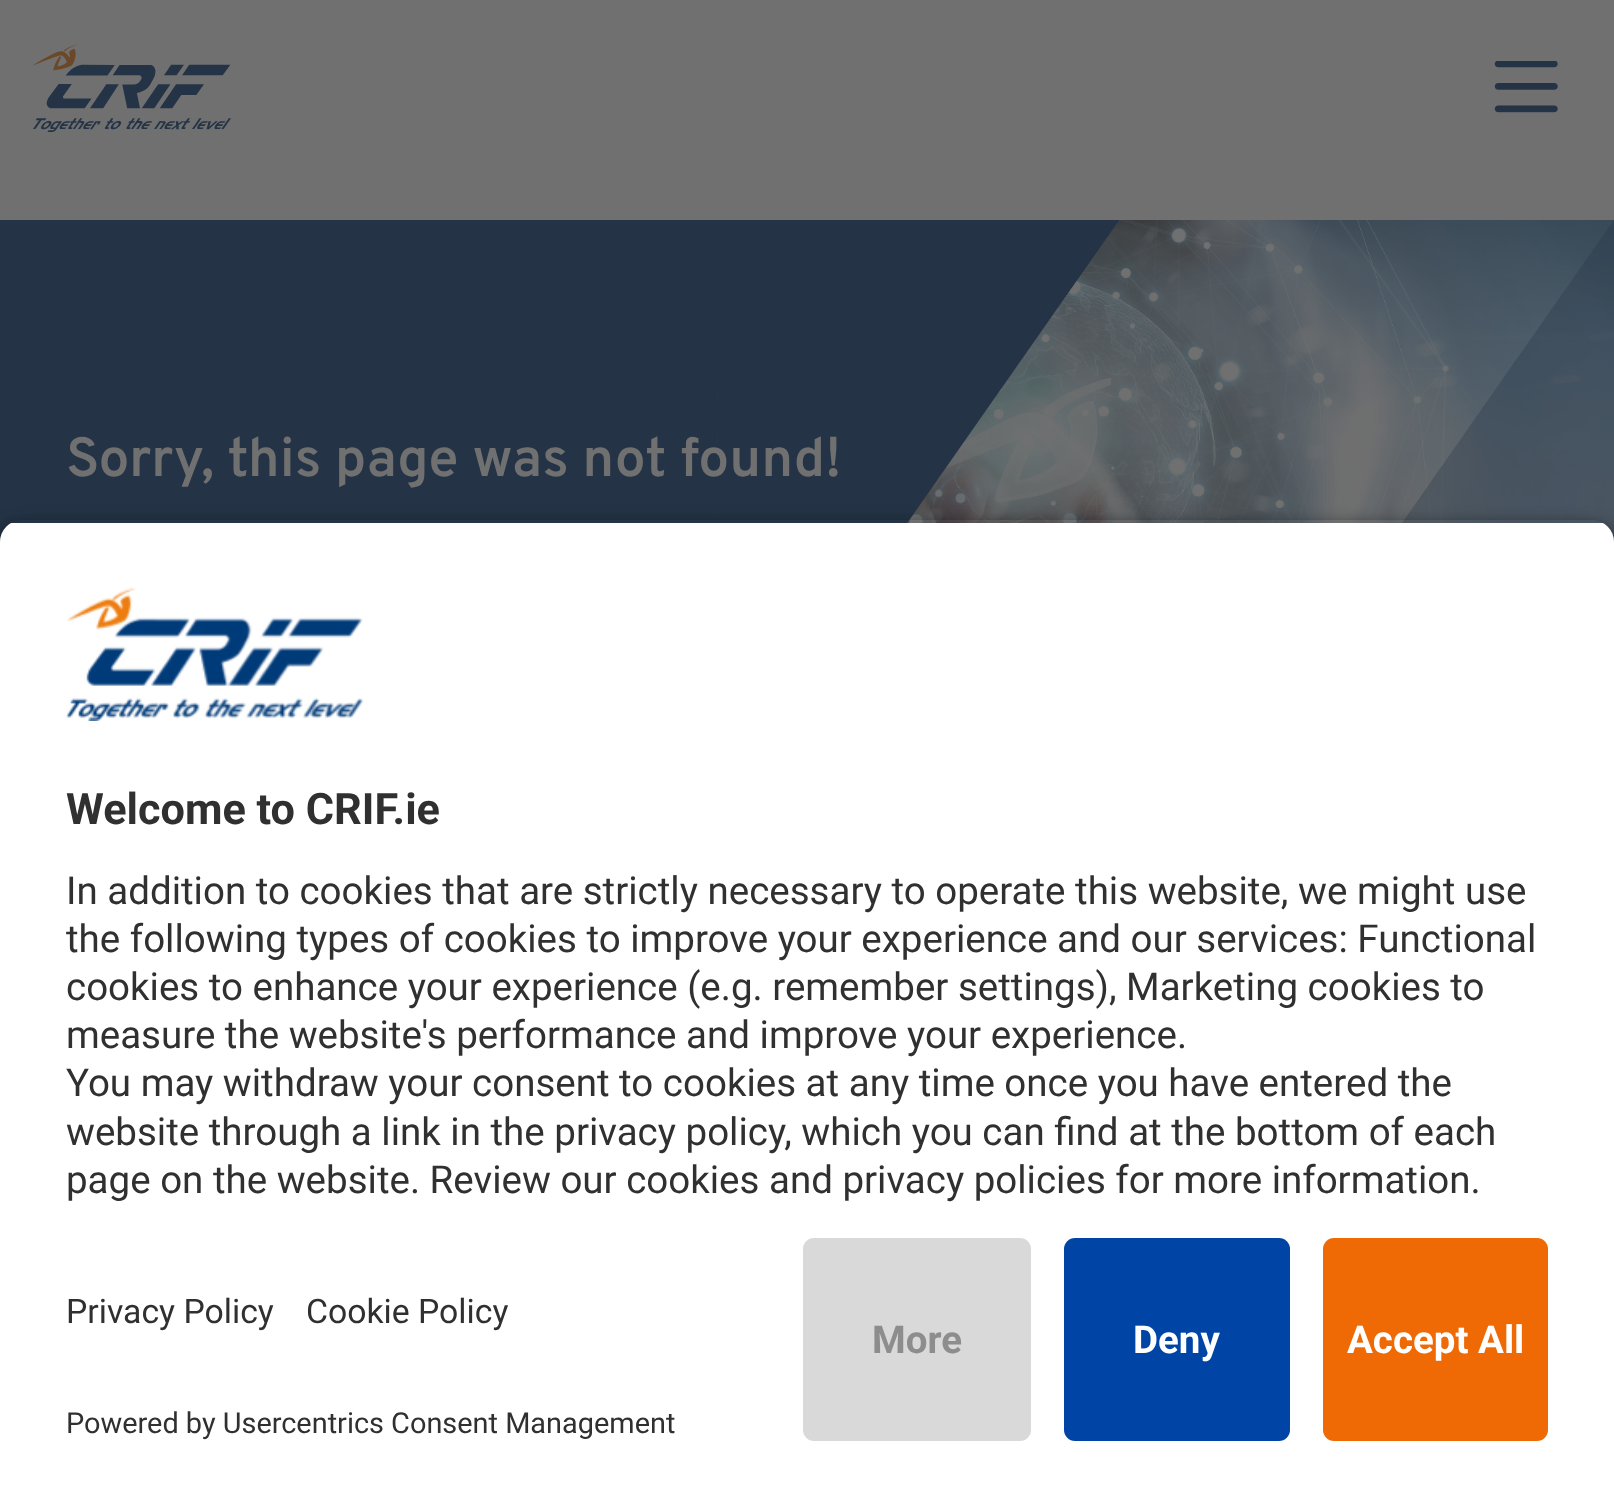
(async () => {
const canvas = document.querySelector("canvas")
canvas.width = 1614
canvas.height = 1507
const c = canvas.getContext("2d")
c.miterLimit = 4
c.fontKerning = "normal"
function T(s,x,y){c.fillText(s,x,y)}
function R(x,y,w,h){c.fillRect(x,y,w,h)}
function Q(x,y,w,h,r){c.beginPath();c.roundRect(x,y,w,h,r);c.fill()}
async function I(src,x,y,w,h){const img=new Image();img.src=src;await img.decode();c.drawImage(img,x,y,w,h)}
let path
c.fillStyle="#707070"
R(0,0,1614,1507)
await I("1.png",33,44,198,88)
await I("2.png",1494,61,64,52)
c.fillStyle="#243446"
R(0,220,718,322)
await I("3.png",717,220,897,322)
c.save()
c.beginPath()
c.rect(718,220,896,572)
c.clip()
path = new Path2D("M990-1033l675 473l-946 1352l-676-473z")
c.fill(path)
c.restore()
c.font="600 55px Overpass"
c.fillStyle="#707070"
T("Sorry, this page was not found!",66,476)
c.fillStyle="#24344652"
path = new Path2D("M1614 220l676 473l-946 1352l-676-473z")
c.fill(path)
c.save()
path = new Path2D("M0 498h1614v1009h-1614zm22 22h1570c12 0 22 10 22 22v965h-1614v-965c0-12 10-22 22-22z")
c.clip(path,"evenodd")
c.fillStyle="#000000cc"
c.filter="blur(9.5px)"
c.beginPath()
c.roundRect(0,528,1614,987,22)
c.fill()
c.filter="none"
c.restore()
c.save()
c.beginPath()
c.roundRect(0,520,1614,696,[22,22,0,0])
c.clip()
c.fillStyle="#fff"
R(0,523,1614,693)
c.restore()
await I("4.png",66,587,297,134)
c.font="bold 43.25px Roboto"
c.fillStyle="#303030"
T("Welcome to CRIF.ie",66,824)
c.font="38.5px Roboto"
T("In addition to cookies that are strictly necessary to operate this website, we might use",66,904)
T("the following types of cookies to improve your experience and our services: Functional",66,952)
T("cookies to enhance your experience (e.g. remember settings), Marketing cookies to",66,1000)
T("measure the website's performance and improve your experience.",66,1048)
T("You may withdraw your consent to cookies at any time once you have entered the",66,1096)
T("website through a link in the privacy policy, which you can find at the bottom of each",66,1145)
T("page on the website. Review our cookies and privacy policies for more information.",66,1193)
c.fillStyle="#fff"
R(0,1216,1614,291)
c.font="33.75px Roboto"
c.fillStyle="#303030"
T("Privacy Policy",66,1323)
T("Cookie Policy",306,1323)
c.font="28.9px Roboto"
T("Powered by Usercentrics Consent Management",66,1433)
c.fillStyle="#dad9d9"
Q(803,1238,228,203,11)
c.font="bold 38.5px Roboto"
c.fillStyle="#8d8d8d"
T("More",872,1353)
c.fillStyle="#0045a5"
Q(1064,1238,226,203,11)
c.fillStyle="#fff"
T("Deny",1133,1353)
c.fillStyle="#ef6905"
Q(1323,1238,225,203,11)
c.fillStyle="#fff"
T("Accept All",1347,1353)
})()
